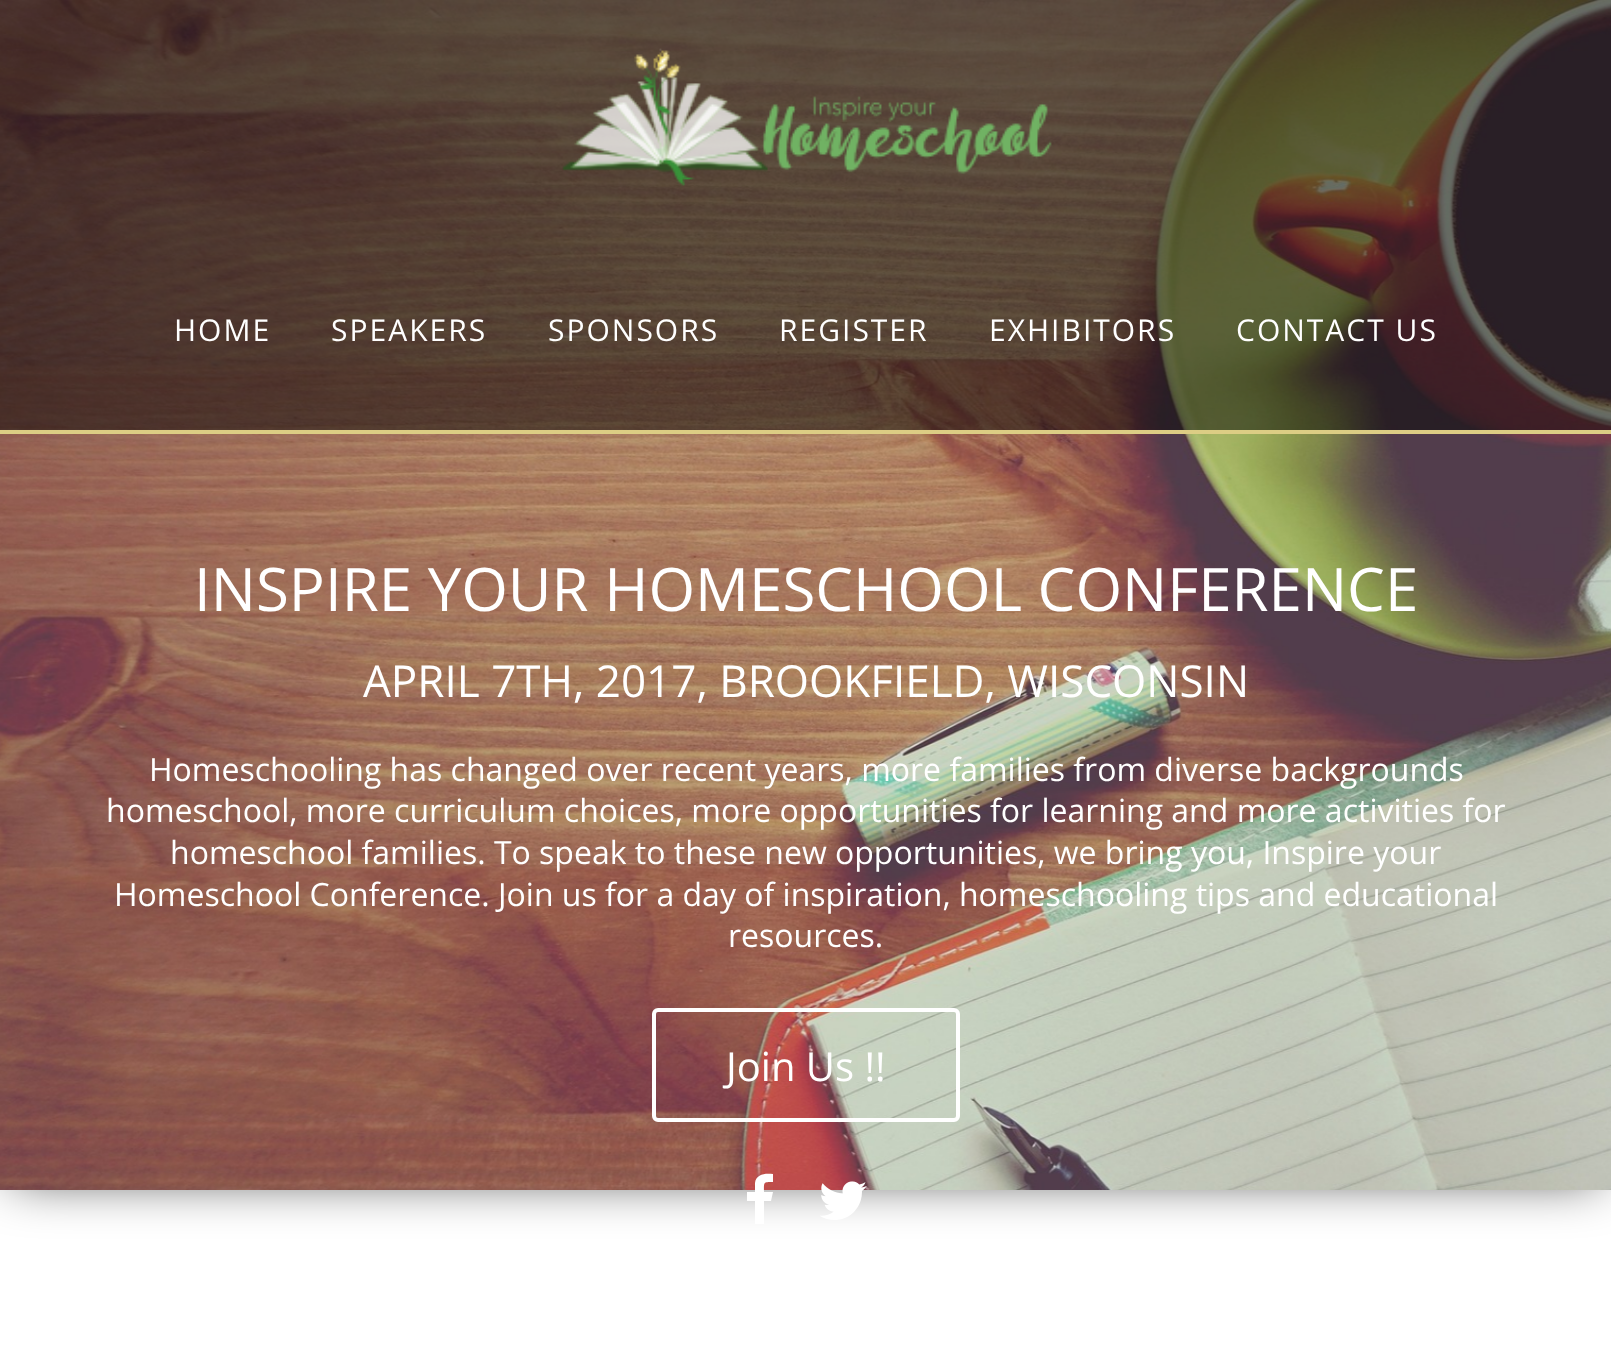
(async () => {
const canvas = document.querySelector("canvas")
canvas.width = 1611
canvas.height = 1356
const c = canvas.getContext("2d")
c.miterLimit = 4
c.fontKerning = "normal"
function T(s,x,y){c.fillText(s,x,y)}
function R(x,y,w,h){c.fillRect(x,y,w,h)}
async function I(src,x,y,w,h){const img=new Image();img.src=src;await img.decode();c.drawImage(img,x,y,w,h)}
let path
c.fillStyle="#fff"
R(0,0,1611,1356)
c.fillStyle="#000000bf"
c.filter="blur(26px)"
c.beginPath()
c.rect(12,12,1588,1166)
c.fill()
c.filter="none"
await I("1.png",0,0,1611,1190)
c.fillStyle="#0000007d"
R(0,0,1611,430)
c.fillStyle="#dccd84"
R(0,430,1611,4)
await I("2.png",562,48,490,138)
c.letterSpacing="2px"
c.font="30px Open Sans"
c.fillStyle="#fff"
T("HOME",174,341)
T("SPEAKERS",331,341)
T("SPONSORS",548,341)
T("REGISTER",779,341)
T("EXHIBITORS",989,341)
T("CONTACT US",1236,341)
c.letterSpacing="0px"
c.font="60px Open Sans"
T("INSPIRE YOUR HOMESCHOOL CONFERENCE",194,611)
c.font="44px Open Sans"
T("APRIL 7TH, 2017, BROOKFIELD, WISCONSIN",363,697)
c.font="32px Open Sans"
T("Homeschooling has changed over recent years, more families from diverse backgrounds",149,781)
T("homeschool, more curriculum choices, more opportunities for learning and more activities for",106,822)
T("homeschool families. To speak to these new opportunities, we bring you, Inspire your",170,864)
T("Homeschool Conference. Join us for a day of inspiration, homeschooling tips and educational",114,906)
T("resources.",728,947)
c.beginPath()
c.roundRect(654,1010,304,110,4)
c.strokeStyle="#fff"
c.lineWidth=4
c.stroke()
c.font="40px Open Sans"
T("Join Us !!",726,1081)
path = new Path2D("M773 1174v8c-10 0-9 0-9 10h9l-2 9h-7v23h-9v-23h-8v-9h8v-9c1-9 10-10 18-9z")
c.fill(path)
await I("3.png",820,1181,47,39)
})()
